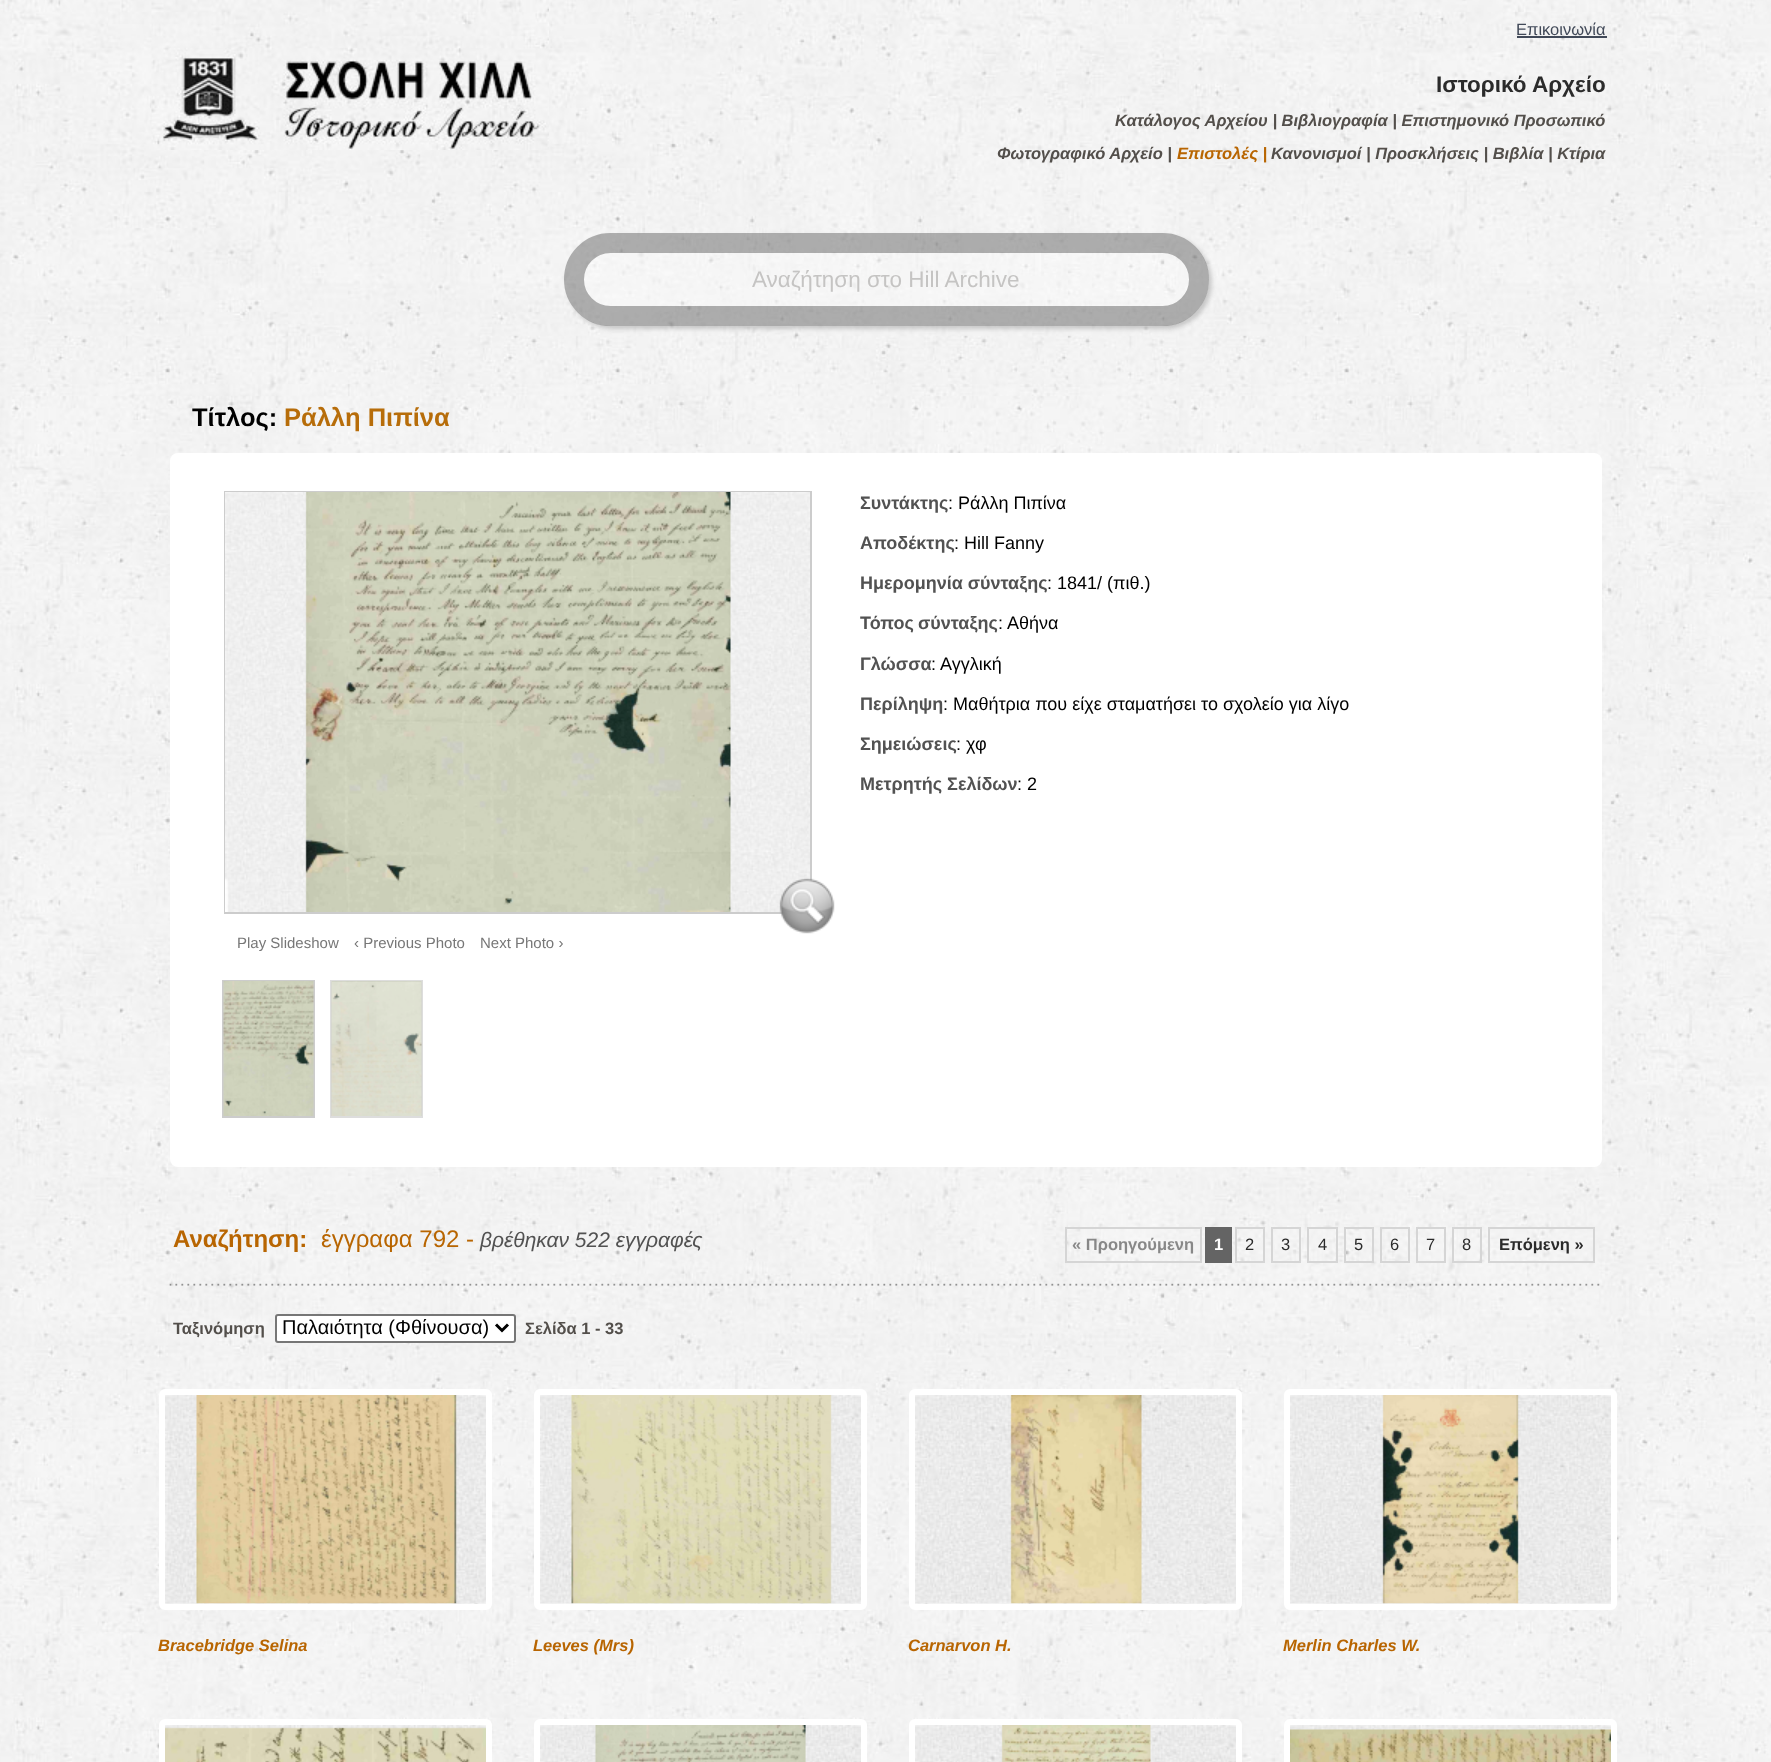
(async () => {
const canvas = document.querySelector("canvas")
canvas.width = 1771
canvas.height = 1762
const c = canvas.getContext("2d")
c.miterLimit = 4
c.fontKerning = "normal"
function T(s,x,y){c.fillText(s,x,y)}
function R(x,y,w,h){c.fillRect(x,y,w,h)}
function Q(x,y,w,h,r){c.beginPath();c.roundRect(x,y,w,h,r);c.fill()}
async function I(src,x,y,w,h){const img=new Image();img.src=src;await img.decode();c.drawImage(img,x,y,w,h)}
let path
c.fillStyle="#fff"
R(0,0,1771,1762)
await I("1.png",0,0,1771,1762)
await I("2.png",151,0,398,150)
c.font="16.5px Liberation Sans"
c.fillStyle="#414958"
T("Επικοινωνία",1516,35)
R(1517,36,90,2)
c.font="bold 22.5px Liberation Sans"
c.fillStyle="#2b2b2b"
T("Ιστορικό Αρχείο",1436,92)
c.font="italic bold 16.5px Liberation Sans"
c.fillStyle="#534f4b"
T("Κατάλογος Αρχείου | Βιβλιογραφία | Επιστημονικό Προσωπικό",1115,126)
T("Φωτογραφικό Αρχείο |",997,159)
c.fillStyle="#b86501"
T("Επιστολές |",1177,159)
c.fillStyle="#534f4b"
T("Κανονισμοί | Προσκλήσεις | Βιβλία | Κτίρια",1271,159)
c.save()
path = new Path2D("M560 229h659v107h-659zm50.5 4h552c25.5 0 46.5 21 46.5 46.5c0 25.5-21 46.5-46.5 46.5h-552c-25.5 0-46.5-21-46.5-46.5c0-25.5 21-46.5 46.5-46.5z")
c.clip(path,"evenodd")
c.fillStyle="#6666664d"
c.filter="blur(2px)"
c.beginPath()
c.roundRect(567,236,645,93,46.5)
c.fill()
c.filter="none"
c.restore()
c.fillStyle="#ffffff4d"
Q(564,233,645,93,46.5)
c.beginPath()
c.roundRect(574,243,625,73,36.5)
c.strokeStyle="#0000004d"
c.lineWidth=20
c.stroke()
c.font="22.5px Liberation Sans"
c.fillStyle="#c5c4c3"
T("Αναζήτηση στο Hill Archive",752,287)
c.font="bold 25.5px Liberation Sans"
c.fillStyle="#000"
T("Τίτλος:",192,426)
c.fillStyle="#b76d0a"
T("Ράλλη Πιπίνα",284,426)
c.fillStyle="#fff"
Q(170,453,1432,714,8)
c.font="bold 18px Liberation Sans"
c.fillStyle="#525252"
T("Συντάκτης",860,509)
c.font="18px Liberation Sans"
c.fillStyle="#000"
T(": Ράλλη Πιπίνα",948,509)
c.font="bold 18px Liberation Sans"
c.fillStyle="#525252"
T("Αποδέκτης",860,549)
c.font="18px Liberation Sans"
c.fillStyle="#000"
T(": Hill Fanny",954,549)
c.font="bold 18px Liberation Sans"
c.fillStyle="#525252"
T("Ημερομηνία σύνταξης",860,589)
c.font="18px Liberation Sans"
c.fillStyle="#000"
T(": 1841/ (πιθ.)",1047,589)
c.save()
c.beginPath()
c.rect(860,491,727,450)
c.clip()
c.font="bold 18px Liberation Sans"
c.fillStyle="#525252"
T("Τόπος",860,629)
c.restore()
c.font="bold 18px Liberation Sans"
c.fillStyle="#525252"
T("σύνταξης",918,629)
c.font="18px Liberation Sans"
c.fillStyle="#000"
T(": Αθήνα",998,629)
c.font="bold 18px Liberation Sans"
c.fillStyle="#525252"
T("Γλώσσα",860,670)
c.font="18px Liberation Sans"
c.fillStyle="#000"
T(": Αγγλική",931,670)
c.font="bold 18px Liberation Sans"
c.fillStyle="#525252"
T("Περίληψη",860,710)
c.font="18px Liberation Sans"
c.fillStyle="#000"
T(": Μαθήτρια που είχε σταματήσει το σχολείο για λίγο",943,710)
c.font="bold 18px Liberation Sans"
c.fillStyle="#525252"
T("Σημειώσεις",860,750)
c.font="18px Liberation Sans"
c.fillStyle="#000"
T(": χφ",956,750)
c.font="bold 18px Liberation Sans"
c.fillStyle="#525252"
T("Μετρητής Σελίδων",860,790)
c.font="18px Liberation Sans"
c.fillStyle="#000"
T(": 2",1017,790)
c.strokeStyle="#ccc"
c.lineWidth=2
c.strokeRect(225,492,586,421)
await I("3.png",225,492,585,420)
await I("4.png",779,878,56,56)
c.font="15px Liberation Sans"
c.fillStyle="#777"
T("Play Slideshow",237,948)
T("‹ Previous Photo",354,948)
T("Next Photo ›",480,948)
c.strokeRect(223,981,91,136)
await I("5.png",223,981,91,135)
c.strokeStyle="#ddd"
c.strokeRect(331,981,91,136)
await I("6.png",331,981,91,135)
c.font="bold 24px Liberation Sans"
c.fillStyle="#b86501"
T("Αναζήτηση:",173,1247)
c.font="24px Liberation Sans"
T("έγγραφα 792 -",321,1247)
c.font="italic 21px Liberation Sans"
c.fillStyle="#525252"
T("βρέθηκαν 522 εγγραφές",480,1247)
c.strokeStyle="#d5d5d5"
c.strokeRect(1066,1228,135,34)
c.font="bold 16.5px Liberation Sans"
c.fillStyle="#888"
T("« Προηγούμενη",1072,1250)
c.fillStyle="#646464"
R(1205,1227,27,36)
c.fillStyle="#fff"
T("1",1214,1250)
c.strokeRect(1236,1228,28,34)
c.font="16.5px Liberation Sans"
c.fillStyle="#2b2b2b"
T("2",1245,1250)
c.strokeRect(1272,1228,28,34)
T("3",1281,1250)
c.strokeRect(1308,1228,29,34)
T("4",1318,1250)
c.strokeRect(1345,1228,28,34)
T("5",1354,1250)
c.strokeRect(1381,1228,28,34)
T("6",1390,1250)
c.strokeRect(1417,1228,28,34)
T("7",1426,1250)
c.strokeRect(1453,1228,28,34)
T("8",1462,1250)
c.strokeRect(1489,1228,105,34)
c.font="bold 16.5px Liberation Sans"
T("Επόμενη »",1499,1250)
await I("7.png",169,1283,1431,3)
c.fillStyle="#534f4b"
T("Ταξινόμηση",173,1334)
c.fillStyle="#fff"
c.beginPath()
c.roundRect(276,1315,239,27,2)
c.fill()
c.strokeStyle="#767676"
c.stroke()
path = new Path2D("M496 1324.5l6 6l6-6")
c.strokeStyle="#000"
c.lineWidth=3
c.stroke(path)
c.font="20px Liberation Sans"
c.fillStyle="#000"
T("Παλαιότητα (Φθίνουσα)",282,1334)
c.font="bold 16.5px Liberation Sans"
c.fillStyle="#534f4b"
T("Σελίδα 1 - 33",525,1334)
c.beginPath()
c.roundRect(162,1392,327,215,3)
c.strokeStyle="#fff"
c.lineWidth=6
c.stroke()
await I("8.png",165,1395,321,209)
c.font="italic bold 16.5px Liberation Sans"
c.fillStyle="#b86501"
T("Bracebridge Selina",158,1651)
c.beginPath()
c.roundRect(537,1392,327,215,3)
c.stroke()
await I("9.png",540,1395,321,209)
T("Leeves (Mrs)",533,1651)
c.beginPath()
c.roundRect(912,1392,327,215,3)
c.stroke()
await I("10.png",915,1395,321,209)
T("Carnarvon H.",908,1651)
c.beginPath()
c.roundRect(1287,1392,327,215,3)
c.stroke()
await I("11.png",1290,1395,321,209)
T("Merlin Charles W.",1283,1651)
c.beginPath()
c.roundRect(162,1722,327,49,3)
c.stroke()
await I("12.png",165,1725,321,37)
c.beginPath()
c.roundRect(537,1722,327,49,3)
c.stroke()
await I("13.png",540,1725,321,37)
c.beginPath()
c.roundRect(912,1722,327,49,3)
c.stroke()
await I("14.png",915,1725,321,37)
c.beginPath()
c.roundRect(1287,1722,327,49,3)
c.stroke()
await I("15.png",1290,1725,321,37)
})()
